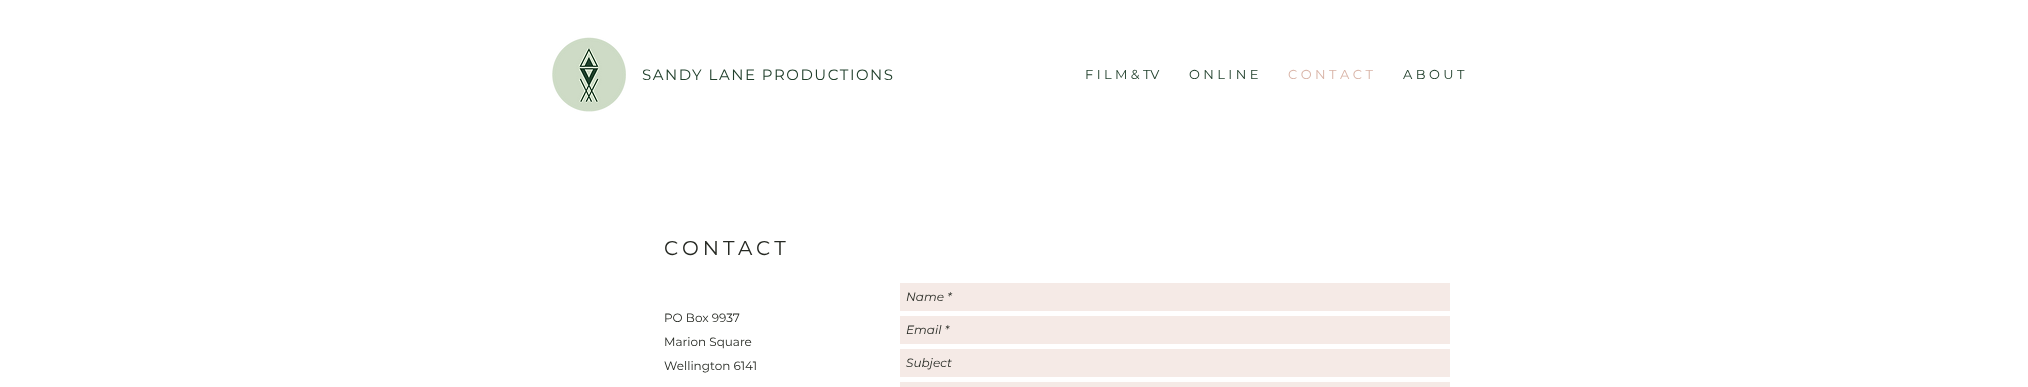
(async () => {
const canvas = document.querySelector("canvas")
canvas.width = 2028
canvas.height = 387
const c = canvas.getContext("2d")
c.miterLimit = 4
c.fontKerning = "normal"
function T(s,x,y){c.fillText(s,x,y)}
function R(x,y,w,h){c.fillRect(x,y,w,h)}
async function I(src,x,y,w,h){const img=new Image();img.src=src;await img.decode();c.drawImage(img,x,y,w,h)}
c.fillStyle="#fff"
R(0,0,2028,387)
await I("1.png",552,37,74,75)
c.letterSpacing="1.5px"
c.font="15px Montserrat"
c.fillStyle="#21402c"
T("SANDY LANE PRODUCTIONS",642,80)
c.letterSpacing="0px"
c.font="13px Montserrat"
T("F I L M & TV",1085,79)
T("O N L I N E",1189,79)
c.fillStyle="#d9b4a7"
T("C O N T A C T",1288,79)
c.fillStyle="#21402c"
T("A B O U T",1403,79)
c.letterSpacing="4px"
c.font="20px Montserrat"
c.fillStyle="#262923"
T("CONTACT",664,255)
c.letterSpacing="0px"
c.font="12px Montserrat"
T("PO Box 9937",664,322)
T("Marion Square",664,346)
T("Wellington 6141",664,370)
c.fillStyle="#f5eae6"
R(900,283,550,28)
c.font="italic 12px Montserrat"
c.fillStyle="#262923"
T("Name *",906,301)
c.fillStyle="#f5eae6"
R(900,316,550,28)
c.fillStyle="#262923"
T("Email *",906,334)
c.fillStyle="#f5eae6"
R(900,349,550,28)
c.fillStyle="#262923"
T("Subject",906,367)
c.fillStyle="#f5eae6"
R(900,382,550,5)
})()
